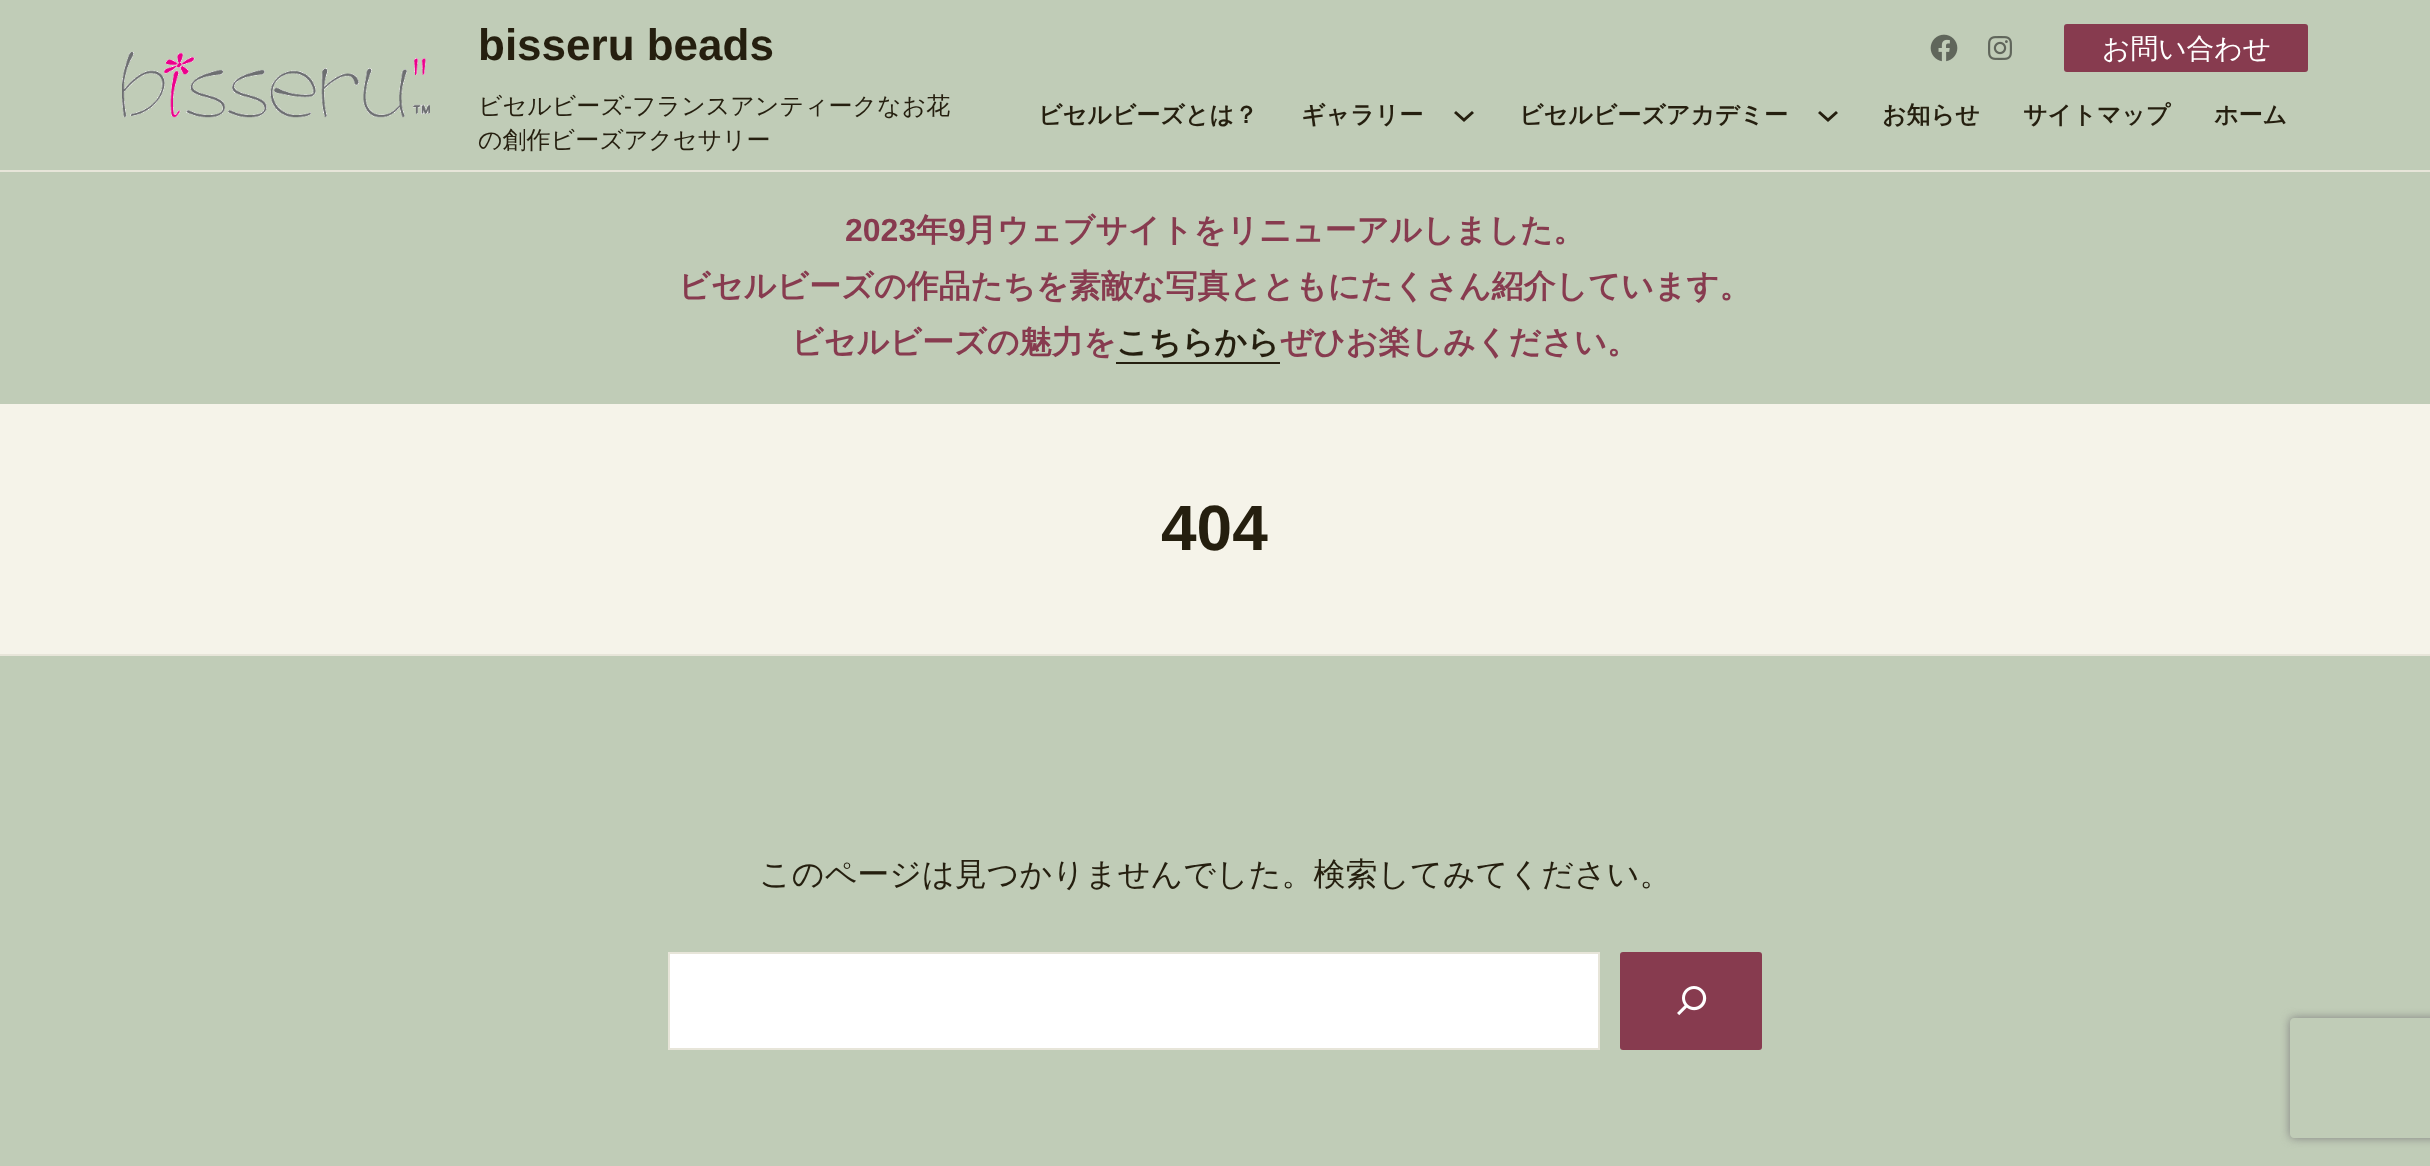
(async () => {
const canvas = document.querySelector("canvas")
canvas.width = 2430
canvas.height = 1166
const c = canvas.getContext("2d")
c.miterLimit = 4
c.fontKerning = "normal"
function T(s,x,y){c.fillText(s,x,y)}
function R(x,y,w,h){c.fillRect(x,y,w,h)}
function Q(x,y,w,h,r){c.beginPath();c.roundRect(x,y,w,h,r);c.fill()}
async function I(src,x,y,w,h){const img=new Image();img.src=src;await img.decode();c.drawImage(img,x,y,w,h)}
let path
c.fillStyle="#c0ccb7"
R(0,0,2430,1166)
await I("1.png",122,52,308,66)
c.font="bold 44px Liberation Sans"
c.fillStyle="#251f0f"
T("bisseru beads",478,60)
c.font="500 24px WenQuanYi Zen Hei"
T("ビセルビーズ",478,114)
c.font="24px Liberation Sans"
T("-",624,114)
c.font="500 24px WenQuanYi Zen Hei"
T("フランスアンティークなお花",632,114)
T("の創作ビーズアクセサリー",478,148)
await I("2.png",1930,34,28,28)
await I("3.png",1988,36,24,24)
c.fillStyle="#873b4f"
Q(2064,24,244,48,3)
c.font="500 27.75px WenQuanYi Zen Hei"
c.fillStyle="#fff"
T("お問い合わせ",2102,58)
c.font="bold 24px WenQuanYi Zen Hei"
c.fillStyle="#251f0f"
T("ビセルビーズとは？",1038,123)
T("ギャラリー",1301,123)
path = new Path2D("M1455 112l9 8l9-8")
c.strokeStyle="#251f0f"
c.lineWidth=3
c.stroke(path)
T("ビセルビーズアカデミー",1519,123)
path = new Path2D("M1819 112l9 8l9-8")
c.stroke(path)
T("お知らせ",1882,123)
T("サイトマップ",2023,123)
T("ホーム",2214,123)
c.fillStyle="#e7e5d9"
R(0,170,2430,2)
c.font="bold 32px Liberation Sans"
c.fillStyle="#873b4f"
T("2023",845,241)
c.font="bold 32px WenQuanYi Zen Hei"
T("年",916,241)
c.font="bold 32px Liberation Sans"
T("9",948,241)
c.font="bold 32px WenQuanYi Zen Hei"
T("月ウェブサイトをリニューアルしました。",965,241)
T("ビセルビーズの作品たちを素敵な写真とともにたくさん紹介しています。",678,297)
T("ビセルビーズの魅力を",791,353)
c.fillStyle="#251f0f"
T("こちらから",1116,353)
R(1116,362,164,2)
c.fillStyle="#873b4f"
T("ぜひお楽しみください。",1280,353)
c.fillStyle="#f5f3e9"
R(0,404,2430,250)
c.fillStyle="#e7e5d9"
R(0,654,2430,2)
c.font="bold 64px Liberation Sans"
c.fillStyle="#251f0f"
T("404",1161,550)
c.font="500 32px WenQuanYi Zen Hei"
T("このページは見つかりませんでした。検索してみてください。",759,885)
c.fillStyle="#fff"
c.beginPath()
c.rect(669,953,930,96)
c.fill()
c.strokeStyle="#e7e5d9"
c.lineWidth=2
c.stroke()
c.fillStyle="#873b4f"
Q(1620,952,142,98,3)
await I("4.png",1677,986,30,30)
c.save()
path = new Path2D("M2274 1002h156v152h-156zm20 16h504c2 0 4 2 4 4v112c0 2-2 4-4 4h-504c-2 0-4-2-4-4v-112c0-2 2-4 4-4z")
c.clip(path,"evenodd")
c.fillStyle="#808080"
c.filter="blur(5px)"
c.beginPath()
c.roundRect(2290,1018,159,120,4)
c.fill()
c.filter="none"
c.restore()
})()
